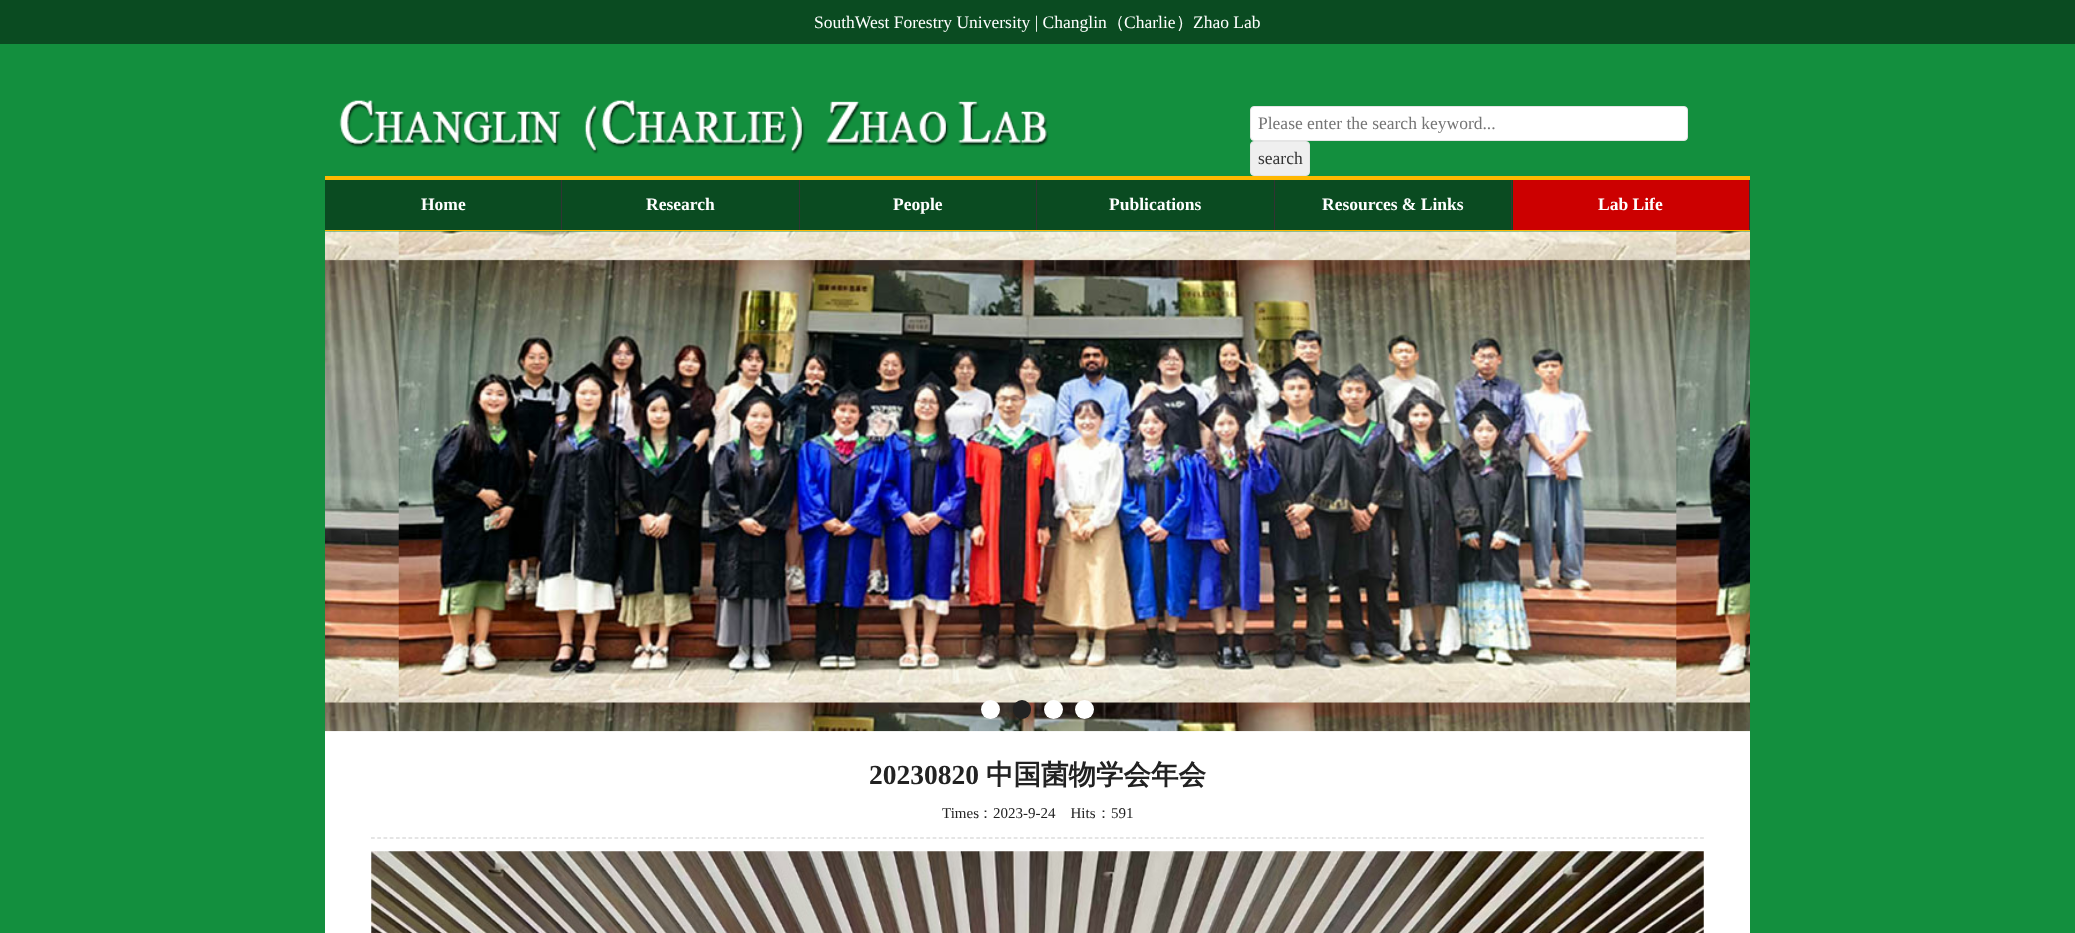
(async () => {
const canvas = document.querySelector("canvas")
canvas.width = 2075
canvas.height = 933
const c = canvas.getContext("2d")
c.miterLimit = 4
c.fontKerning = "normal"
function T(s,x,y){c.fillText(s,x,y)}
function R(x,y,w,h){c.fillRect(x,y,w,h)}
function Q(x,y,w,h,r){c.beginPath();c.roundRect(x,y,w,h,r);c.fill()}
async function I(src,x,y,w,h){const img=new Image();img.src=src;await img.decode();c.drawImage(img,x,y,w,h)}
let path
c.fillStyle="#138f3e"
R(0,0,2075,933)
c.fillStyle="#0a4b21"
R(0,0,2075,44)
c.font="17.5px Liberation Serif"
c.fillStyle="#fff"
T("SouthWest Forestry University | Changlin",814,28)
c.font="500 17.5px WenQuanYi Zen Hei"
T("（",1107,28)
c.font="17.5px Liberation Serif"
T("Charlie",1124,28)
c.font="500 17.5px WenQuanYi Zen Hei"
T("）",1176,28)
c.font="17.5px Liberation Serif"
T("Zhao Lab",1193,28)
await I("1.png",339,100,710,54)
c.beginPath()
c.roundRect(1250.5,106.5,437,34,3.5)
c.fill()
c.strokeStyle="#e5e5e5"
c.stroke()
c.fillStyle="#757575"
T("Please enter the search keyword...",1258,129)
c.fillStyle="#efefef"
c.beginPath()
c.roundRect(1250.5,141.5,59,34,3.5)
c.fill()
c.stroke()
c.fillStyle="#333"
T("search",1258,164)
c.fillStyle="#0a4b21"
R(325,180,1188,50)
c.fillStyle="#ffb801"
R(325,176,1425,4)
R(325,230,1425,1)
c.fillStyle="#333"
R(561,180,1,50)
c.font="bold 17.5px Liberation Serif"
c.fillStyle="#fff"
T("Home",421,210)
c.fillStyle="#333"
R(799,180,1,50)
c.fillStyle="#fff"
T("Research",646,210)
c.fillStyle="#333"
R(1036,180,1,50)
c.fillStyle="#fff"
T("People",893,210)
c.fillStyle="#333"
R(1274,180,1,50)
c.fillStyle="#fff"
T("Publications",1109,210)
c.fillStyle="#333"
R(1511,180,1,50)
c.fillStyle="#fff"
T("Resources & Links",1322,210)
c.fillStyle="#c00"
R(1513,180,236,50)
c.fillStyle="#333"
R(1749,180,1,50)
c.fillStyle="#fff"
T("Lab Life",1598,210)
R(325,731,1425,202)
await I("2.png",325,231,1425,501)
c.beginPath()
c.arc(990.5,709.5,9.5,0,7)
c.fill()
c.fillStyle="#222"
Q(1013,700,18,19,9)
c.fillStyle="#fff"
c.beginPath()
c.arc(1053.5,709.5,9.5,0,7)
c.fill()
c.beginPath()
c.arc(1084.5,709.5,9.5,0,7)
c.fill()
c.font="bold 27.5px Liberation Serif"
c.fillStyle="#222"
T("20230820",869,784)
c.font="bold 27.5px WenQuanYi Zen Hei"
T("中国菌物学会年会",986,784)
path = new Path2D("M371 838h1333")
c.strokeStyle="#ccc"
c.lineWidth=1.2
c.setLineDash([3.75,2.49])
c.stroke(path)
c.font="15px Liberation Serif"
T("Times",942,818)
c.font="500 15px WenQuanYi Zen Hei"
T("：",978,818)
c.font="15px Liberation Serif"
T("2023-9-24    Hits",993,818)
c.font="500 15px WenQuanYi Zen Hei"
T("：",1096,818)
c.font="15px Liberation Serif"
T("591",1111,818)
await I("3.png",371,851,1333,82)
})()
